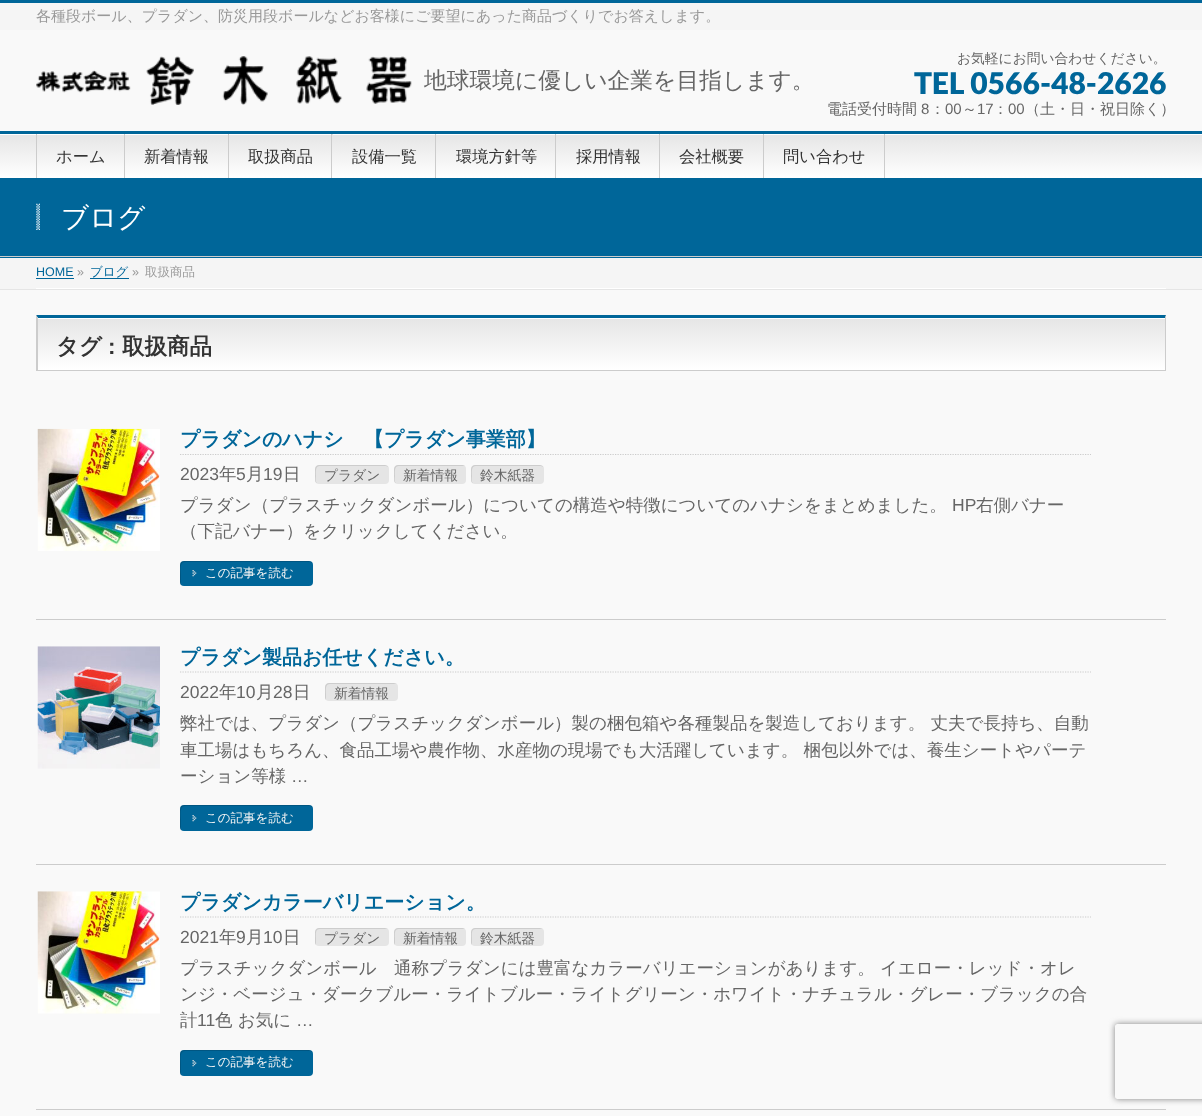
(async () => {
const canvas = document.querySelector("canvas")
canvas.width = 1202
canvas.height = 1116
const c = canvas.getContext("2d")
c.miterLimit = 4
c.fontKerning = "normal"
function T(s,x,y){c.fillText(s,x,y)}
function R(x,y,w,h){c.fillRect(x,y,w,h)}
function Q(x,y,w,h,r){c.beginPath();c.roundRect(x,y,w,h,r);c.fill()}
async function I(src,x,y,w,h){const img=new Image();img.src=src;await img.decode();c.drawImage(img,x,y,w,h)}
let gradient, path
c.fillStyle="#f9f9f9"
R(0,0,1202,1116)
c.fillStyle="#f5f5f5"
R(0,3,1202,27)
c.fillStyle="#069"
R(0,0,1202,3)
c.font="500 15px WenQuanYi Zen Hei"
c.fillStyle="#999"
T("各種段ボール、プラダン、防災用段ボールなどお客様にご要望にあった商品づくりでお答えします。",36,21)
await I("1.png",36,56,376,49)
c.font="500 22.75px WenQuanYi Zen Hei"
c.fillStyle="#666"
T("地球環境に優しい企業を目指します。",424,88)
c.font="500 13.75px WenQuanYi Zen Hei"
T("お気軽にお問い合わせください。",957,63)
c.font="900 30px Lato"
c.fillStyle="#069"
T("TEL 0566-48-2626",914,94)
c.font="500 15px WenQuanYi Zen Hei"
c.fillStyle="#666"
T("電話受付時間",827,114)
c.font="15px Liberation Sans"
T("8",921,114)
c.font="500 15px WenQuanYi Zen Hei"
T("：",930,114)
c.font="15px Liberation Sans"
T("00",945,114)
c.font="500 15px WenQuanYi Zen Hei"
T("～",962,114)
c.font="15px Liberation Sans"
T("17",977,114)
c.font="500 15px WenQuanYi Zen Hei"
T("：",993,114)
c.font="15px Liberation Sans"
T("00",1008,114)
c.font="500 15px WenQuanYi Zen Hei"
T("（土・日・祝日除く）",1025,114)
gradient = c.createLinearGradient(601,134,601,178)
gradient.addColorStop(0,"#e5e5e5")
gradient.addColorStop(1,"#fff")
c.fillStyle = gradient
R(0,135,1202,43)
c.fillStyle="#fff"
R(0,134,1202,1)
c.fillStyle="#069"
R(0,131,1202,3)
c.fillStyle="#ccc"
R(36,134,1,44)
R(124,134,1,44)
c.font="500 16.25px WenQuanYi Zen Hei"
c.fillStyle="#333"
T("ホーム",56,162)
c.fillStyle="#ccc"
R(228,134,1,44)
c.fillStyle="#333"
T("新着情報",144,162)
gradient = c.createLinearGradient(229,134,229,178)
gradient.addColorStop(0,"#e5e5e5")
gradient.addColorStop(1,"#fff")
c.fillStyle = gradient
R(229,134,104,1)
c.fillStyle="#fff"
R(229,134,102,1)
c.fillStyle="#ccc"
R(331,134,1,44)
c.fillStyle="#333"
T("取扱商品",248,162)
c.fillStyle="#ccc"
R(435,134,1,44)
c.fillStyle="#333"
T("設備一覧",352,162)
c.fillStyle="#ccc"
R(555,134,1,44)
c.fillStyle="#333"
T("環境方針等",456,162)
c.fillStyle="#ccc"
R(659,134,1,44)
c.fillStyle="#333"
T("採用情報",576,162)
c.fillStyle="#ccc"
R(763,134,1,44)
c.fillStyle="#333"
T("会社概要",679,162)
c.fillStyle="#ccc"
R(884,134,1,44)
c.fillStyle="#333"
T("問い合わせ",783,162)
c.fillStyle="#069"
R(0,178,1202,80)
c.fillStyle="#ccc"
R(0,256,1202,1)
await I("2.png",36,203,4,27)
c.font="500 27.5px WenQuanYi Zen Hei"
c.fillStyle="#fff"
T("ブログ",61,227)
c.fillStyle="#f5f5f5"
R(0,258,1202,31)
c.fillStyle="#e5e5e5"
R(0,289,1202,1)
c.fillStyle="#fff"
R(36,288,1130,1)
c.font="12.5px Liberation Sans"
c.fillStyle="#069"
T("HOME",36,276)
R(36,278,38,1)
c.fillStyle="#999"
T("»",77,276)
c.font="500 12.5px WenQuanYi Zen Hei"
c.fillStyle="#069"
T("ブログ",90,276)
R(90,278,39,1)
c.font="12.5px Liberation Sans"
c.fillStyle="#999"
T("»",132,276)
c.font="500 12.5px WenQuanYi Zen Hei"
T("取扱商品",145,276)
gradient = c.createLinearGradient(38,318,38,370)
gradient.addColorStop(0,"#e5e5e5")
gradient.addColorStop(1,"#fff")
c.fillStyle = gradient
R(38,319,1127,51)
c.fillStyle="#fff"
R(38,318,1127,1)
c.fillStyle="#069"
path = new Path2D("M36 315h1130l-1 3h-1127z")
c.fill(path)
c.fillStyle="#ccc"
path = new Path2D("M1166 315v56l-1-1v-52z")
c.fill(path)
R(36,370,1130,1)
path = new Path2D("M36 371v-56l2 3v52z")
c.fill(path)
c.font="bold 22.5px WenQuanYi Zen Hei"
c.fillStyle="#333"
T("タグ",56,354)
c.font="bold 22.5px Liberation Sans"
T(":",108,354)
c.font="bold 22.5px WenQuanYi Zen Hei"
T("取扱商品",122,354)
c.fillStyle="#ccc"
R(36,619,1130,1)
await I("3.png",37,428,123,123)
path = new Path2D("M180 454.5h911")
c.strokeStyle="#ccc"
c.lineWidth=1.2
c.setLineDash([1.25,1.25])
c.stroke(path)
c.font="bold 20px WenQuanYi Zen Hei"
c.fillStyle="#069"
T("プラダンのハナシ　【プラダン事業部】",180,446)
c.font="17.5px Liberation Sans"
c.fillStyle="#666"
T("2023",180,480)
c.font="500 17.5px WenQuanYi Zen Hei"
T("年",219,480)
c.font="17.5px Liberation Sans"
T("5",236,480)
c.font="500 17.5px WenQuanYi Zen Hei"
T("月",246,480)
c.font="17.5px Liberation Sans"
T("19",263,480)
c.font="500 17.5px WenQuanYi Zen Hei"
T("日",283,480)
c.fillStyle="#e5e5e5"
Q(315,465,74,19,4)
c.fillStyle="#0000001a"
path = new Path2D("M320 466h66l2 1c0-1-2-2-3-2h-66c-2 0-4 2-4 4v11c0 1 1 3 2 3c-2-2-1-5-1-7c0-4-1-10 4-10z")
c.fill(path)
c.font="500 13.75px WenQuanYi Zen Hei"
c.fillStyle="#666"
T("プラダン",324,480)
c.fillStyle="#e5e5e5"
Q(394,465,72,19,4)
c.fillStyle="#0000001a"
path = new Path2D("M399 466h66c-1-1-2-1-3-1h-64c-2 0-4 2-4 4v11c0 1 1 3 2 3c-2-2-1-5-1-7c0-4-1-10 4-10z")
c.fill(path)
c.fillStyle="#666"
T("新着情報",403,480)
c.fillStyle="#e5e5e5"
Q(471,465,73,19,4)
c.fillStyle="#0000001a"
path = new Path2D("M476 466h65l2 1c0-1-2-2-3-2h-65c-2 0-4 2-4 4v11c0 1 1 3 2 3c-2-2-1-5-1-7c0-4-1-10 4-10z")
c.fill(path)
c.fillStyle="#666"
T("鈴木紙器",480,480)
c.font="500 17.5px WenQuanYi Zen Hei"
T("プラダン（プラスチックダンボール）についての構造や特徴についてのハナシをまとめました。",180,511)
c.font="17.5px Liberation Sans"
T("HP",952,511)
c.font="500 17.5px WenQuanYi Zen Hei"
T("右側バナー",976,511)
T("（下記バナー）をクリックしてください。",180,537)
c.fillStyle="#069"
Q(180,561,133,25,4)
await I("4.png",192,570,5,7)
c.fillStyle="#00000026"
path = new Path2D("M185 562h125l2 1c0-1-2-2-3-2h-125c-2 0-4 2-4 4v17c0 1 0 2 1 3v-10c0-3-2-13 4-13z")
c.fill(path)
c.font="500 12.5px WenQuanYi Zen Hei"
c.fillStyle="#f5f5f5"
T("この記事を読む",205,577)
c.fillStyle="#ccc"
R(36,864,1130,1)
await I("5.png",37,646,123,123)
path = new Path2D("M180 672h911")
c.stroke(path)
c.font="bold 20px WenQuanYi Zen Hei"
c.fillStyle="#069"
T("プラダン製品お任せください。",180,664)
c.font="17.5px Liberation Sans"
c.fillStyle="#666"
T("2022",180,698)
c.font="500 17.5px WenQuanYi Zen Hei"
T("年",219,698)
c.font="17.5px Liberation Sans"
T("10",236,698)
c.font="500 17.5px WenQuanYi Zen Hei"
T("月",256,698)
c.font="17.5px Liberation Sans"
T("28",273,698)
c.font="500 17.5px WenQuanYi Zen Hei"
T("日",293,698)
c.fillStyle="#e5e5e5"
Q(325,683,73,18,4)
c.fillStyle="#0000001a"
path = new Path2D("M330 684h65h2c-1 0-2-1-3-1h-65c-2 0-4 2-4 4v10c0 1 0 2 1 3v-6c0-4-1-10 4-10z")
c.fill(path)
c.font="500 13.75px WenQuanYi Zen Hei"
c.fillStyle="#666"
T("新着情報",334,698)
c.font="500 17.5px WenQuanYi Zen Hei"
T("弊社では、プラダン（プラスチックダンボール）製の梱包箱や各種製品を製造しております。 丈夫で長持ち、自動",180,729)
T("車工場はもちろん、食品工場や農作物、水産物の現場でも大活躍しています。 梱包以外では、養生シートやパーテ",180,756)
T("ーション等様",180,782)
c.font="17.5px Liberation Sans"
T("…",291,782)
c.fillStyle="#069"
Q(180,805,133,26,4)
await I("4.png",192,815,5,7)
c.fillStyle="#00000026"
path = new Path2D("M185 806h125l2 1c0-1-2-2-3-2h-125c-2 0-4 2-4 4v18c0 1 0 2 1 3v-10c0-4-2-14 4-14z")
c.fill(path)
c.font="500 12.5px WenQuanYi Zen Hei"
c.fillStyle="#f5f5f5"
T("この記事を読む",205,822)
c.fillStyle="#ccc"
R(36,1109,1130,1)
await I("6.png",37,891,123,123)
path = new Path2D("M180 917h911")
c.stroke(path)
c.font="bold 20px WenQuanYi Zen Hei"
c.fillStyle="#069"
T("プラダンカラーバリエーション。",180,909)
c.font="17.5px Liberation Sans"
c.fillStyle="#666"
T("2021",180,943)
c.font="500 17.5px WenQuanYi Zen Hei"
T("年",219,943)
c.font="17.5px Liberation Sans"
T("9",236,943)
c.font="500 17.5px WenQuanYi Zen Hei"
T("月",246,943)
c.font="17.5px Liberation Sans"
T("10",263,943)
c.font="500 17.5px WenQuanYi Zen Hei"
T("日",283,943)
c.fillStyle="#e5e5e5"
Q(315,928,74,18,4)
c.fillStyle="#0000001a"
path = new Path2D("M320 929h68c-1 0-2-1-3-1h-66c-2 0-4 2-4 4v10c0 1 0 2 1 3v-7c0-4-1-9 4-9z")
c.fill(path)
c.font="500 13.75px WenQuanYi Zen Hei"
c.fillStyle="#666"
T("プラダン",324,943)
c.fillStyle="#e5e5e5"
Q(394,928,72,18,4)
c.fillStyle="#0000001a"
path = new Path2D("M399 929h66c-1-1-2-1-3-1h-64c-2 0-4 2-4 4v10c0 1 0 2 1 3v-7c0-4-1-9 4-9z")
c.fill(path)
c.fillStyle="#666"
T("新着情報",403,943)
c.fillStyle="#e5e5e5"
Q(471,928,73,18,4)
c.fillStyle="#0000001a"
path = new Path2D("M476 929h67c-1 0-2-1-3-1h-65c-2 0-4 2-4 4v10c0 1 0 2 1 3v-7c0-4-1-9 4-9z")
c.fill(path)
c.fillStyle="#666"
T("鈴木紙器",480,943)
c.font="500 17.5px WenQuanYi Zen Hei"
T("プラスチックダンボール　通称プラダンには豊富なカラーバリエーションがあります。 イエロー・レッド・オレ",180,974)
T("ンジ・ベージュ・ダークブルー・ライトブルー・ライトグリーン・ホワイト・ナチュラル・グレー・ブラックの合",180,1000)
T("計",180,1026)
c.font="17.5px Liberation Sans"
T("11",197,1026)
c.font="500 17.5px WenQuanYi Zen Hei"
T("色 お気に",215,1026)
c.font="17.5px Liberation Sans"
T("…",296,1026)
c.fillStyle="#069"
Q(180,1050,133,26,4)
await I("4.png",192,1060,5,7)
c.fillStyle="#00000026"
path = new Path2D("M185 1051h125l2 1c0-1-2-2-3-2h-125c-2 0-4 2-4 4v18c0 1 0 2 1 3v-11c0-3-2-13 4-13z")
c.fill(path)
c.font="500 12.5px WenQuanYi Zen Hei"
c.fillStyle="#f5f5f5"
T("この記事を読む",205,1066)
c.save()
path = new Path2D("M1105 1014h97v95h-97zm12.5 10h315c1.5 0 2.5 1 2.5 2.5v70c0 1.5-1 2.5-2.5 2.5h-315c-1.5 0-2.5-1-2.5-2.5v-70c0-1.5 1-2.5 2.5-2.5z")
c.clip(path,"evenodd")
c.fillStyle="#808080"
c.filter="blur(3px)"
c.beginPath()
c.roundRect(1115,1024,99,75,2.5)
c.fill()
c.filter="none"
c.restore()
})()
